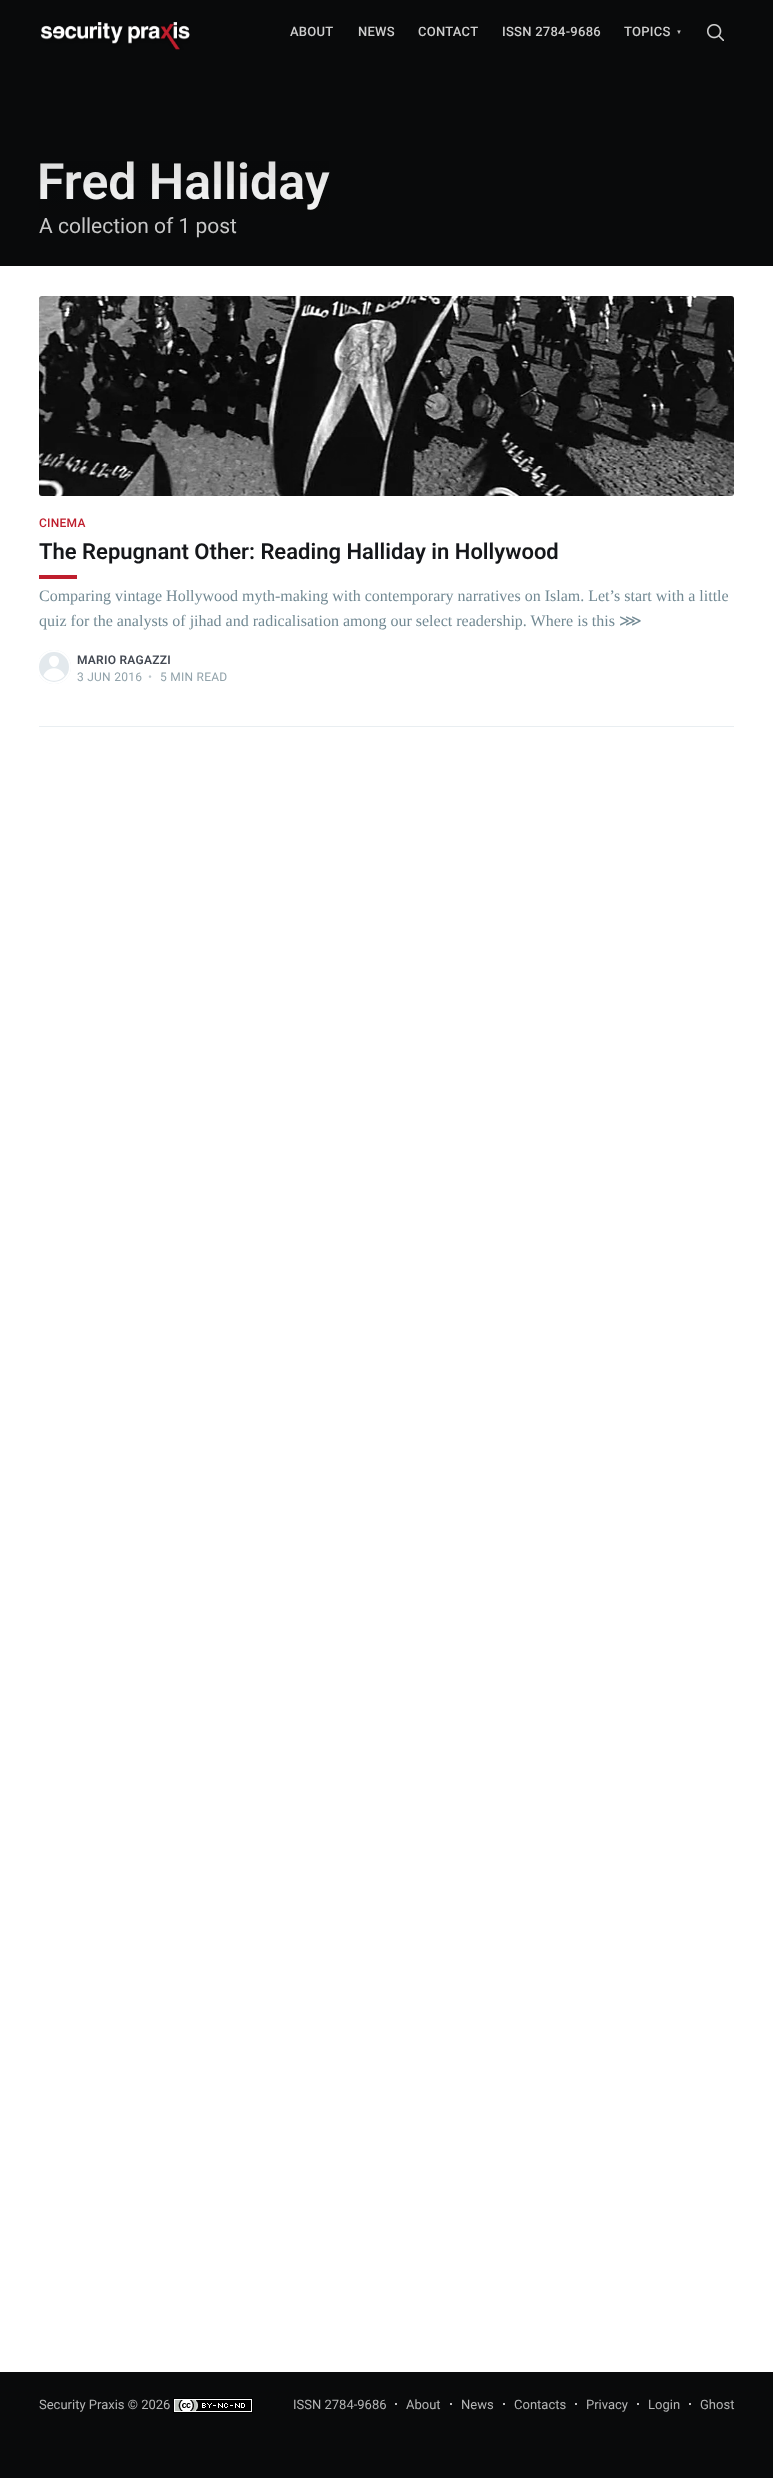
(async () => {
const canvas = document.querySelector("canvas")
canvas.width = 773
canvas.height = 2478
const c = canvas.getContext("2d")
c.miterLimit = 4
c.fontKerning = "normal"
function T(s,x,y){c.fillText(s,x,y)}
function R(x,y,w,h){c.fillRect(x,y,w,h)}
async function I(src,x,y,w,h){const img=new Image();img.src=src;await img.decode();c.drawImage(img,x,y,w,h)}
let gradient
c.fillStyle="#fff"
R(0,0,773,2478)
c.fillStyle="#090a0b"
R(0,0,773,266)
await I("1.png",40,22,150,28)
c.letterSpacing="0.25px"
c.font="500 13px Roboto"
c.fillStyle="#cecece"
T("ABOUT",290,36)
T("NEWS",358,36)
T("CONTACT",418,36)
T("ISSN 2784-9686",502,36)
T("TOPICS",624,36)
c.font="6px Liberation Sans"
c.fillStyle="#c0c0c1"
T("▼",676,34)
await I("2.png",707,24,17,17)
c.letterSpacing="0px"
c.font="600 50px Roboto"
c.fillStyle="#fff"
T("Fred Halliday",37,199)
c.font="21px Roboto"
c.fillStyle="#cecece"
T("A collection of 1 post",39,233)
gradient = c.createLinearGradient(387,64,387,266)
gradient.addColorStop(0,"#0000002e")
gradient.addColorStop(1,"#00000000")
c.fillStyle = gradient
R(39,161,290,76)
gradient = c.createLinearGradient(387,64,387,204)
gradient.addColorStop(0,"#00000026")
gradient.addColorStop(1,"#00000000")
c.fillStyle = gradient
R(40,161,289,23)
c.fillStyle="#e9eef1"
R(39,726,695,1)
await I("3.png",39,296,695,200)
c.letterSpacing="0.25px"
c.font="500 12px Roboto"
c.fillStyle="#bf1e2d"
T("CINEMA",39,527)
c.letterSpacing="0px"
c.font="600 22px Roboto"
c.fillStyle="#15171a"
T("The Repugnant Other: Reading Halliday in Hollywood",39,559)
c.fillStyle="#bf1e2d"
R(39,575,38,4)
c.font="16px Liberation Serif"
c.fillStyle="#738a94"
T("Comparing vintage Hollywood myth-making with contemporary narratives on Islam. Let’s start with a little",39,601)
T("quiz for the analysts of jihad and radicalisation among our select readership. Where is this",39,626)
c.font="16px DejaVu Sans"
T("⋙",619,626)
c.save()
c.beginPath()
c.rect(39,266,695,499)
c.clip()
c.fillStyle="#e3e9ed"
c.beginPath()
c.arc(54,667,17,0,7)
c.fill()
c.restore()
c.save()
c.beginPath()
c.rect(39,296,695,430)
c.clip()
c.beginPath()
c.arc(54,667,16,0,7)
c.strokeStyle="#fff"
c.lineWidth=2
c.stroke()
c.restore()
await I("4.png",43,655,22,26)
c.letterSpacing="0.25px"
c.font="600 12px Roboto"
c.fillStyle="#424852"
T("MARIO RAGAZZI",77,664)
c.font="12px Roboto"
c.fillStyle="#92a3ab"
T("3 JUN 2016",77,681)
c.fillStyle="#bec8cd"
T("•",148,681)
c.fillStyle="#92a3ab"
T("5 MIN READ",160,681)
c.fillStyle="#090a0b"
R(0,2372,773,106)
c.letterSpacing="0px"
c.font="13px Roboto"
c.fillStyle="#b5b6b6"
T("Security Praxis © 2026",39,2409)
await I("5.png",173,2398,80,15)
T("ISSN 2784-9686",293,2409)
c.fillStyle="#fff"
c.beginPath()
c.arc(396,2404,1,0,7)
c.fill()
c.fillStyle="#b5b6b6"
T("About",406,2409)
c.fillStyle="#fff"
c.beginPath()
c.arc(451,2404,1,0,7)
c.fill()
c.fillStyle="#b5b6b6"
T("News",461,2409)
c.fillStyle="#fff"
c.beginPath()
c.arc(504,2404,1,0,7)
c.fill()
c.fillStyle="#b5b6b6"
T("Contacts",514,2409)
c.fillStyle="#fff"
c.beginPath()
c.arc(576,2404,1,0,7)
c.fill()
c.fillStyle="#b5b6b6"
T("Privacy",586,2409)
c.fillStyle="#fff"
c.beginPath()
c.arc(638,2404,1,0,7)
c.fill()
c.fillStyle="#b5b6b6"
T("Login",648,2409)
c.fillStyle="#fff"
c.beginPath()
c.arc(690,2404,1,0,7)
c.fill()
c.fillStyle="#b5b6b6"
T("Ghost",700,2409)
})()
